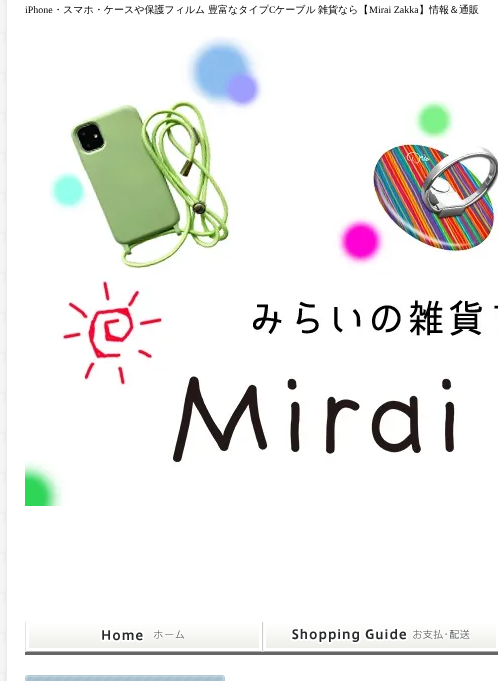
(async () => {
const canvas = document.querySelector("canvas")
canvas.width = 498
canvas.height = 681
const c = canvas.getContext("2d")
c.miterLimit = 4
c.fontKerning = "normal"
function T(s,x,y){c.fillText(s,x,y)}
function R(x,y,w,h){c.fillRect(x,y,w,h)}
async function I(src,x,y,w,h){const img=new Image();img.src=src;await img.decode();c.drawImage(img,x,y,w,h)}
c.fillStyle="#fff"
R(0,0,498,681)
await I("1.png",0,0,498,681)
c.font="10px Liberation Serif"
c.fillStyle="#000"
T("iPhone",25,13)
c.font="500 10px WenQuanYi Zen Hei"
T("・スマホ・ケースや保護フィルム",53,13)
T("豊富なタイプ",208,13)
c.font="10px Liberation Serif"
T("C",269,13)
c.font="500 10px WenQuanYi Zen Hei"
T("ケーブル",275,13)
T("雑貨なら【",318,13)
c.font="10px Liberation Serif"
T("Mirai Zakka",369,13)
c.font="500 10px WenQuanYi Zen Hei"
T("】情報＆通販",419,13)
await I("2.png",25,36,473,470)
c.fillStyle="#666"
R(25,652,473,3)
await I("3.png",25,621,237,31)
await I("4.png",262,621,236,31)
await I("5.png",25,675,200,6)
})()
